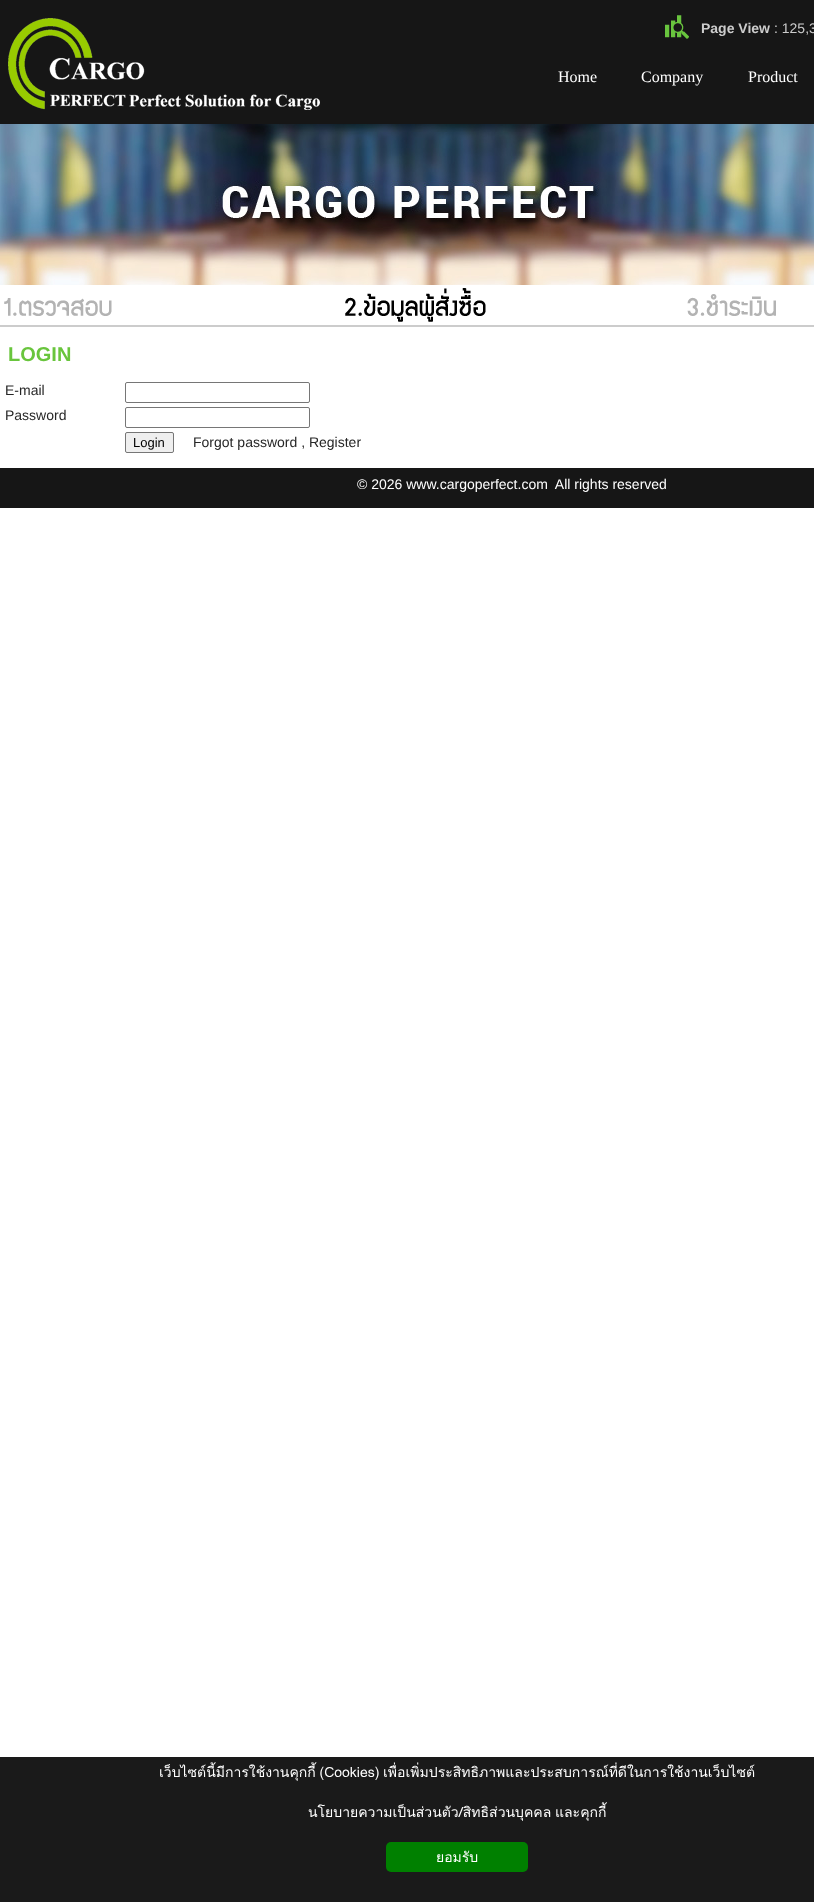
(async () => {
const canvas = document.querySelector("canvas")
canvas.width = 814
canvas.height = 1902
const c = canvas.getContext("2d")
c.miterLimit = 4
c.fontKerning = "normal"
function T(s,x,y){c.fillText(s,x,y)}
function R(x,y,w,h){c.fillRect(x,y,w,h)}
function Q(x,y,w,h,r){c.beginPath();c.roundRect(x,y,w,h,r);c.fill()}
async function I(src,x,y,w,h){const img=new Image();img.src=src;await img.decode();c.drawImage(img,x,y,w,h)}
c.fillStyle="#fff"
R(0,0,814,1902)
c.fillStyle="#161616"
R(0,0,814,124)
await I("1.png",8,18,312,92)
await I("2.png",665,15,24,24)
c.font="bold 14px Liberation Sans"
c.fillStyle="#ccc"
T("Page View",701,33)
c.font="14px Liberation Sans"
T(": 125,3",774,33)
c.font="16px Liberation Serif"
c.fillStyle="#fff"
T("Home",558,82)
T("Company",641,82)
T("Product",748,82)
await I("3.png",0,124,814,161)
c.fillStyle="#ccc"
R(0,325,814,2)
await I("4.png",4,298,108,18)
await I("5.png",345,288,141,34)
await I("6.png",687,294,89,22)
c.font="bold 20px Liberation Sans"
c.fillStyle="#69c53d"
T("LOGIN",8,361)
c.font="14px Liberation Sans"
c.fillStyle="#262626"
T("E-mail",5,395)
c.beginPath()
c.roundRect(125.5,382.5,184,20,1.5)
c.strokeStyle="#767676"
c.stroke()
T("Password",5,420)
c.beginPath()
c.roundRect(125.5,407.5,184,20,1.5)
c.stroke()
c.fillStyle="#efefef"
c.beginPath()
c.roundRect(125.5,432.5,48,20,1.5)
c.fill()
c.stroke()
c.font="13px Liberation Sans"
c.fillStyle="#000"
T("Login",133,447)
c.font="14px Liberation Sans"
c.fillStyle="#262626"
T("Forgot password , Register",193,447)
c.fillStyle="#161616"
R(0,468,814,40)
c.fillStyle="#fff"
T("© 2026 www.cargoperfect.com  All rights reserved",357,489)
c.fillStyle="#1a1a1a"
R(0,1757,814,145)
c.wordSpacing="-1px"
c.font="14px Loma"
c.fillStyle="#fff"
T("เว็บไซต์นี้มีการใช้งานคุกกี้ (Cookies) เพื่อเพิ่มประสิทธิภาพและประสบการณ์ที่ดีในการใช้งานเว็บไซต์",159,1777)
T("นโยบายความเป็นส่วนตัว/สิทธิส่วนบุคคล และคุกกี้",308,1817)
c.fillStyle="#008000"
Q(386,1842,142,30,5)
c.wordSpacing="0px"
c.fillStyle="#fff"
T("ยอมรับ",436,1862)
})()
